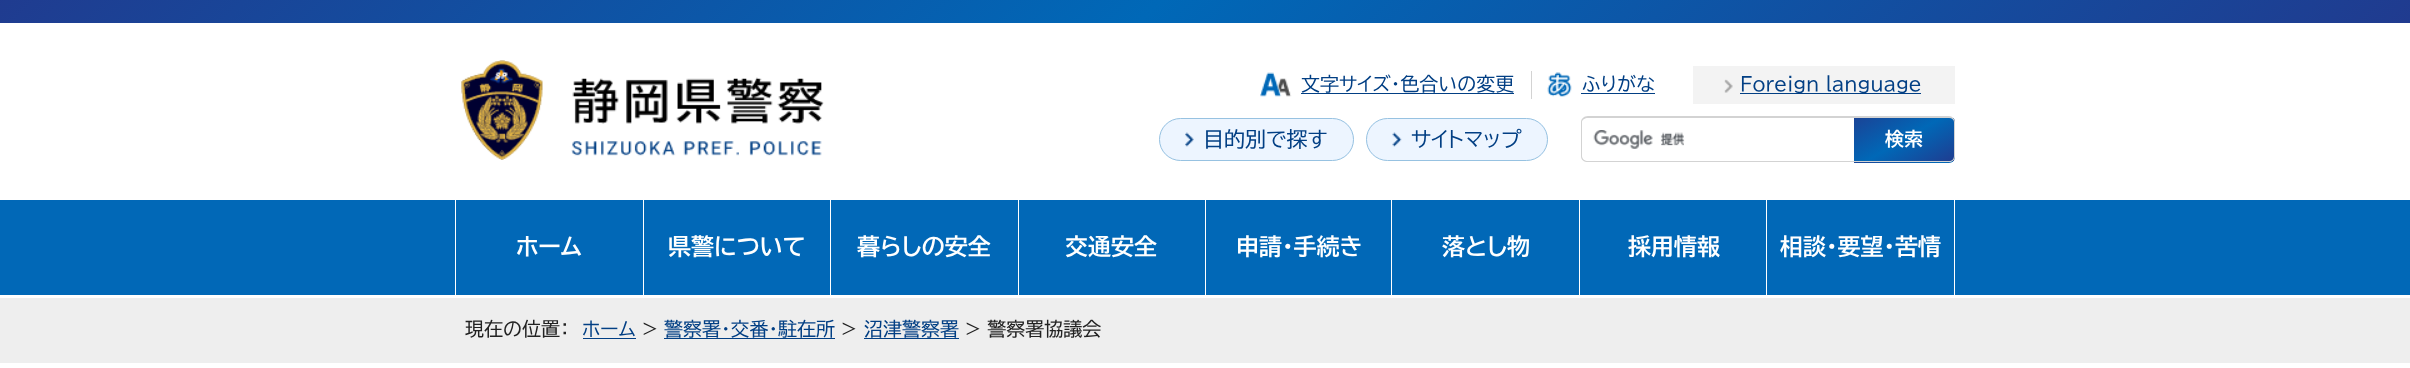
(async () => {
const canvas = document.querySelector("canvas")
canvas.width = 2410
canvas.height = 368
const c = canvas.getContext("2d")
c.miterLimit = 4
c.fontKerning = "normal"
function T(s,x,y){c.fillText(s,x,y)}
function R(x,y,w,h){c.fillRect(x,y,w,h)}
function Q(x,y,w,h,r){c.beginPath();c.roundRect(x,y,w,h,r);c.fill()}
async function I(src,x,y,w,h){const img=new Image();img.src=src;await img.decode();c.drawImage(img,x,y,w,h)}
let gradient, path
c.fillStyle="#fff"
R(0,0,2410,368)
gradient = c.createLinearGradient(498,-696,1912,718)
gradient.addColorStop(0,"#253489")
gradient.addColorStop(.48,"#0068b7")
gradient.addColorStop(1,"#253489")
c.fillStyle = gradient
R(0,0,2410,23)
await I("1.png",461,60,363,100)
await I("2.png",1260,72,32,25)
c.font="19px BIZ UDPGothic"
c.fillStyle="#023f84"
T("文字サイズ・色合いの変更",1301,91)
R(1301,93,213,1)
c.fillStyle="#d3d3d3"
R(1531,71,1,28)
await I("3.png",1547,72,25,25)
c.fillStyle="#023f84"
T("ふりがな",1582,91)
R(1581,93,74,1)
c.fillStyle="#f3f3f3"
R(1693,66,262,38)
await I("4.png",1724,79,9,14)
c.fillStyle="#023f84"
R(1740,93,181,1)
T("Foreign language",1740,91)
c.fillStyle="#edf5ff"
Q(1159,118,195,43,21.5)
await I("5.png",1185,132,9,15)
c.beginPath()
c.roundRect(1159.5,118.5,194,42,21)
c.strokeStyle="#97c2e1"
c.stroke()
c.font="21px BIZ UDPGothic"
c.fillStyle="#023f84"
T("目的別で探す",1203,147)
c.fillStyle="#edf5ff"
Q(1366,118,182,43,21.5)
await I("6.png",1392,132,10,15)
c.beginPath()
c.roundRect(1366.5,118.5,181,42,21)
c.stroke()
c.fillStyle="#023f84"
T("サイトマップ",1411,147)
await I("7.png",1593,130,92,19)
c.fillStyle="#d3d3d3"
path = new Path2D("M1588 116h266v46h-266c-4 0-7-2-7-6v-34c0-3 3-6 7-6zm0 2h266v43h-266c-3 0-6-2-6-5v-34c0-2 3-4 6-4z")
c.fill(path,"evenodd")
gradient = c.createLinearGradient(1930,185,1873,86)
gradient.addColorStop(0,"#253489")
gradient.addColorStop(.46,"#0068b7")
gradient.addColorStop(1,"#253489")
c.fillStyle = gradient
R(1854,118,100,43)
c.save()
c.beginPath()
c.roundRect(1854,116,101,47,[0,6,6,0])
c.clip()
gradient = c.createLinearGradient(2030,185,1973,86)
gradient.addColorStop(0,"#253489")
gradient.addColorStop(.46,"#0068b7")
gradient.addColorStop(1,"#253489")
c.fillStyle = gradient
R(1954,118,1,43)
gradient = c.createLinearGradient(1930,229,1873,130)
gradient.addColorStop(0,"#253489")
gradient.addColorStop(.46,"#0068b7")
gradient.addColorStop(1,"#253489")
c.fillStyle = gradient
R(1854,161,100,2)
c.restore()
c.fillStyle="#d3d3d3"
path = new Path2D("M1854 116h95c3 0 6 3 6 6v34c0 4-3 6-6 6h-95zm0 2h95c3 0 5 2 5 4v34c0 3-2 5-5 5h-95z")
c.fill(path,"evenodd")
c.font="bold 19px BIZ UDPGothic"
c.fillStyle="#fff"
T("検索",1885,146)
c.fillStyle="#0168b7"
R(0,200,2410,95)
c.fillStyle="#fff"
R(455,200,1,95)
c.font="bold 23px BIZ UDPGothic"
T("ホーム",516,255)
R(643,200,1,95)
T("県警について",668,255)
R(830,200,1,95)
T("暮らしの安全",857,255)
R(1018,200,1,95)
T("交通安全",1065,255)
R(1205,200,1,95)
T("申請・手続き",1236,255)
R(1391,200,1,95)
T("落とし物",1442,255)
R(1579,200,1,95)
T("採用情報",1628,255)
R(1954,200,1,95)
R(1766,200,1,95)
T("相談・要望・苦情",1780,255)
c.fillStyle="#eee"
R(0,298,2410,65)
c.font="19px BIZ UDPGothic"
c.fillStyle="#222"
T("現在の位置：",465,336)
c.fillStyle="#023f84"
T("ホーム",582,336)
R(583,338,53,1)
c.fillStyle="#222"
T(">",642,336)
c.fillStyle="#023f84"
T("警察署・交番・駐在所",664,336)
R(664,338,171,1)
c.fillStyle="#222"
T(">",841,336)
c.fillStyle="#023f84"
T("沼津警察署",864,336)
R(864,338,95,1)
c.fillStyle="#222"
T("> 警察署協議会",965,336)
})()
